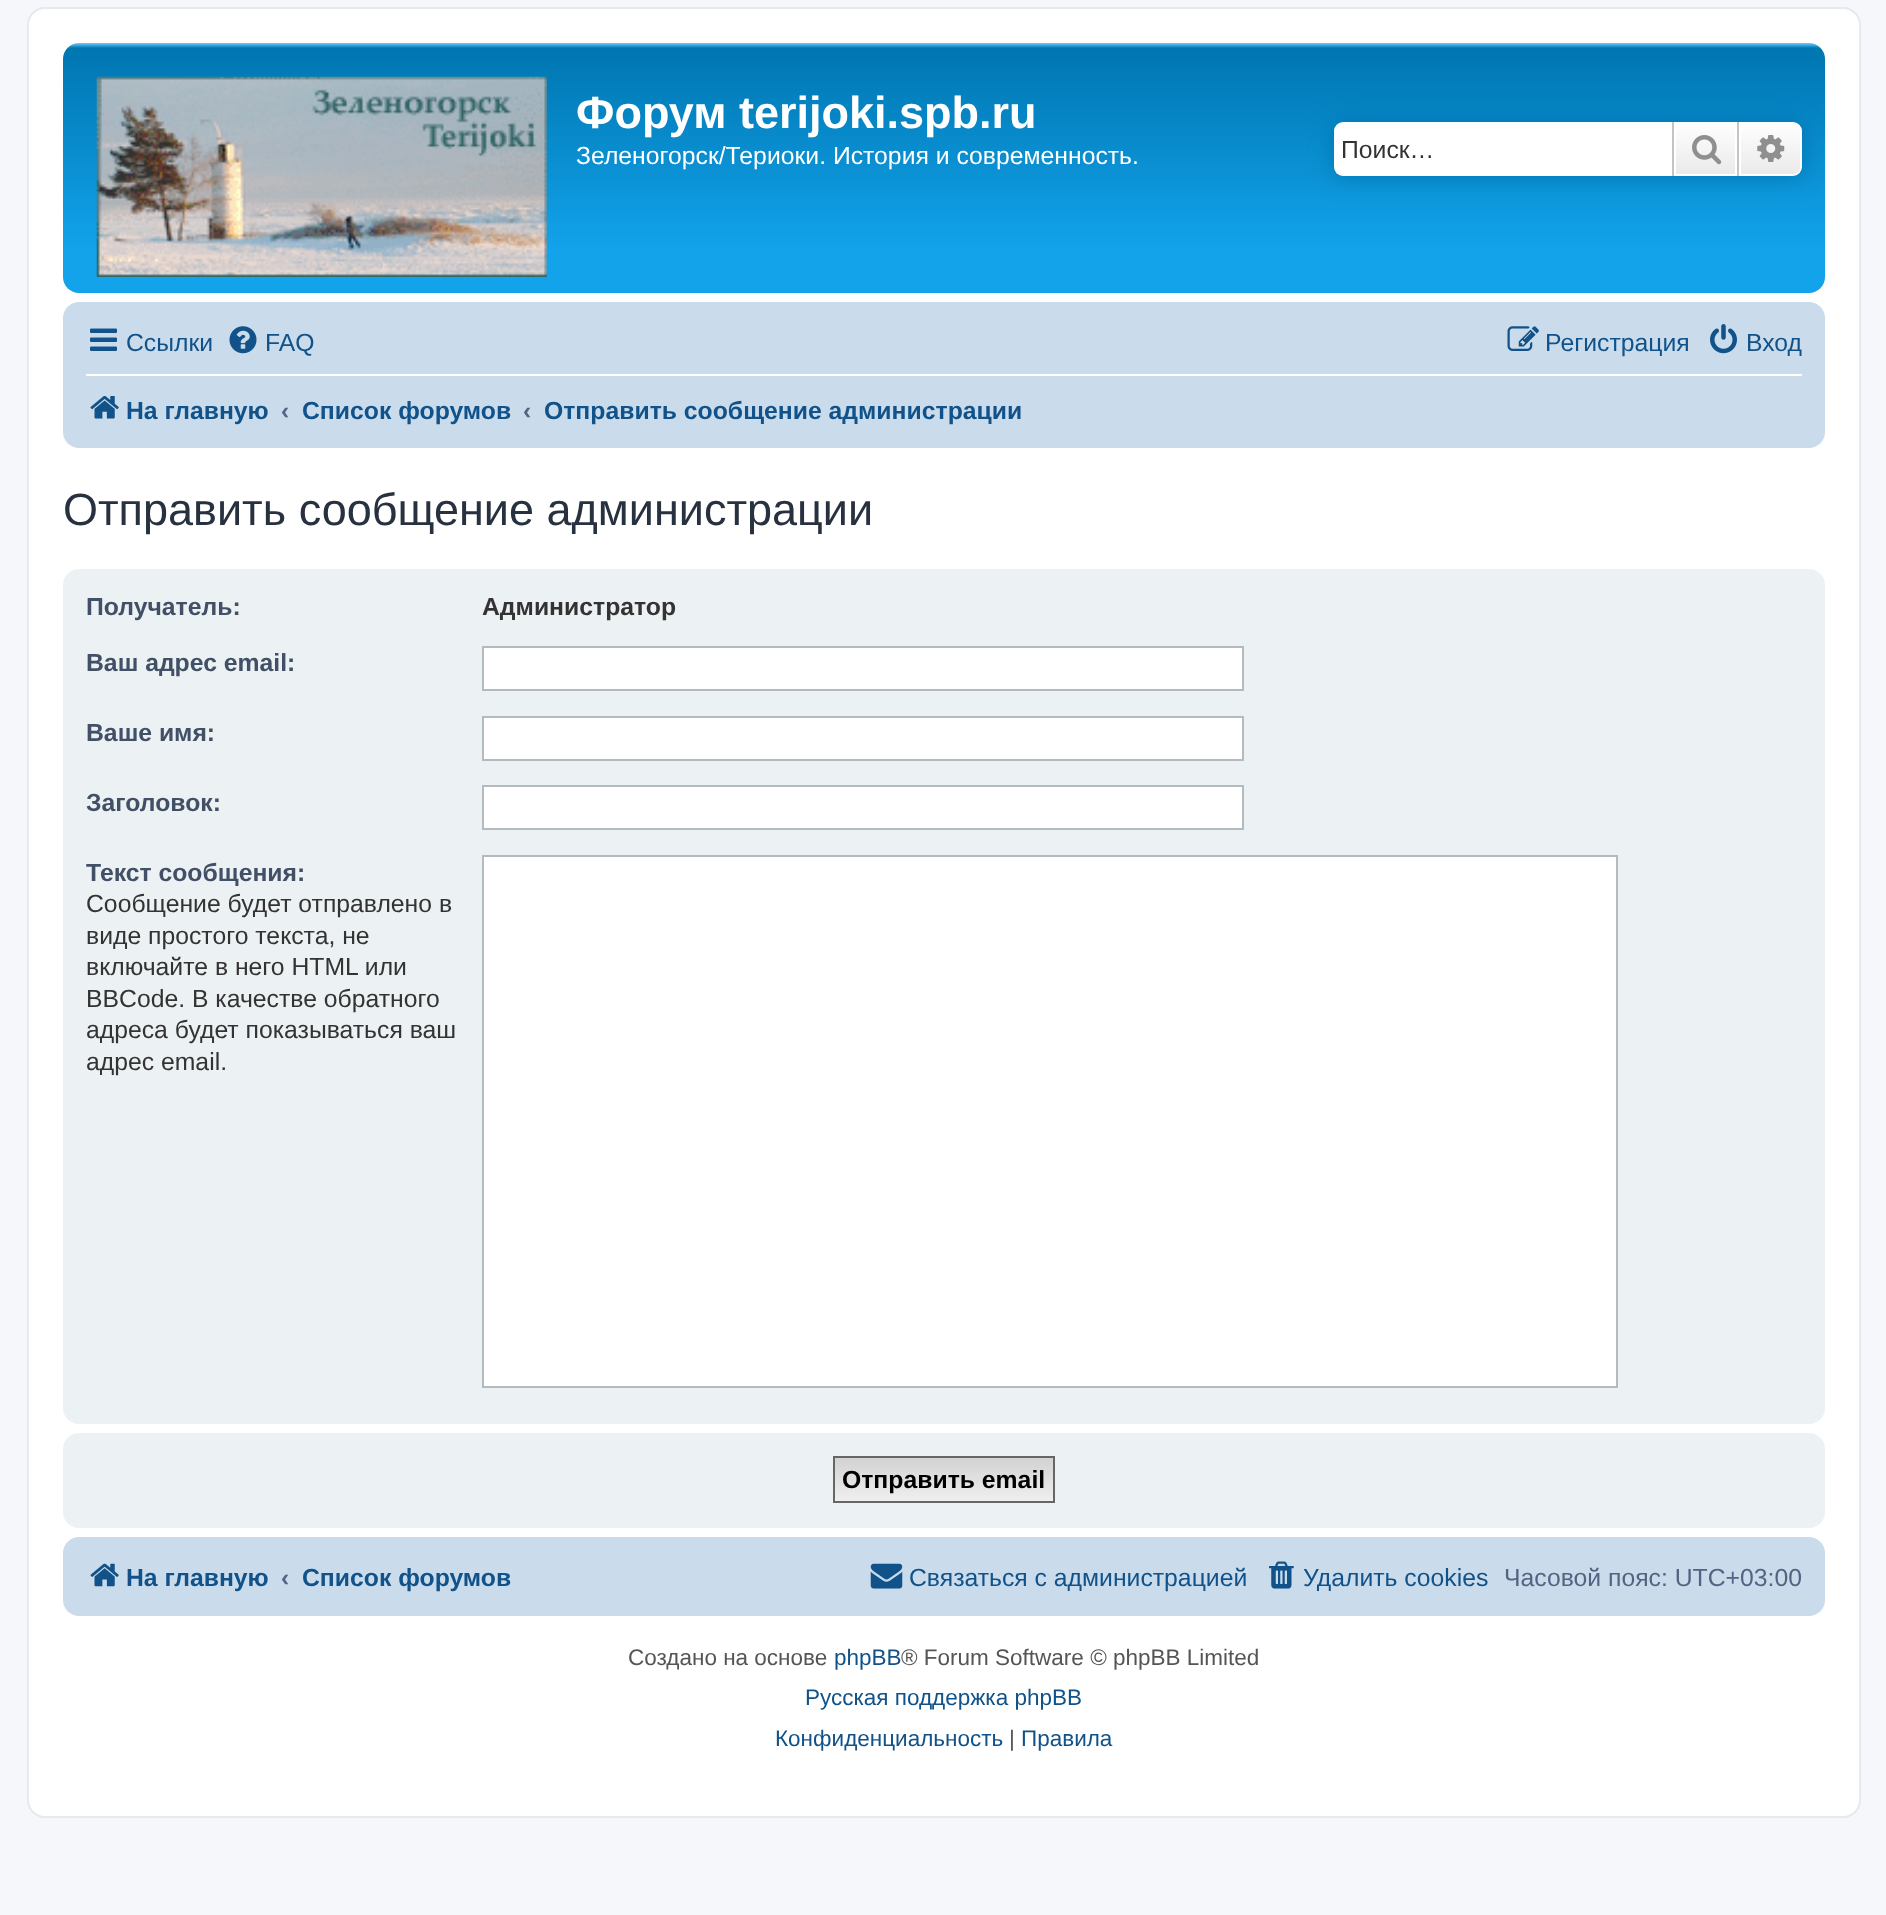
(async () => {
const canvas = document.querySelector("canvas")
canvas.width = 1886
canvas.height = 1915
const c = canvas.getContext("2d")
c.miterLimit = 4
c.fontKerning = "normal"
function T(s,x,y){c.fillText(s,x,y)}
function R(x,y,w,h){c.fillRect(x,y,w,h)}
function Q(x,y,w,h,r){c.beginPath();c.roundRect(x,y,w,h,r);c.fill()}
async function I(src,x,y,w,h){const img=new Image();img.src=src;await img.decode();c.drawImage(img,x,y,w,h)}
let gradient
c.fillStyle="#f5f7fa"
R(0,0,1886,1915)
c.fillStyle="#fff"
c.beginPath()
c.roundRect(28,8,1832,1809,17)
c.fill()
c.strokeStyle="#e6e9ed"
c.lineWidth=2
c.stroke()
gradient = c.createLinearGradient(944,43,944,293)
gradient.addColorStop(0,"#6aceff")
gradient.addColorStop(.02,"#0076b1")
gradient.addColorStop(.83,"#12a3eb")
gradient.addColorStop(1,"#12a3eb")
c.fillStyle = gradient
Q(63,43,1762,250,16)
await I("1.png",96,76,451,201)
c.font="bold 45px Liberation Sans"
c.fillStyle="#fff"
T("Форум terijoki.spb.ru",576,128)
c.font="24.75px Liberation Sans"
T("Зеленогорск/Териоки. История и современность.",576,164)
c.fillStyle="#0075b0"
c.filter="blur(11px)"
c.beginPath()
c.roundRect(1334,122,468,54,9)
c.fill()
c.filter="none"
c.fillStyle="#fff"
c.beginPath()
c.roundRect(1334,122,338,54,[9,0,0,9])
c.fill()
c.fillStyle="#333"
T("Поиск…",1341,158)
gradient = c.createLinearGradient(1706,122,1706,176)
gradient.addColorStop(0,"#fff")
gradient.addColorStop(1,"#e9e9e9")
c.fillStyle = gradient
R(1676,124,59,50)
c.strokeStyle="#fff"
c.strokeRect(1675,123,61,52)
c.fillStyle="#c7c3bf"
R(1737,122,2,54)
R(1672,122,2,54)
await I("2.png",1692,135,30,30)
gradient = c.createLinearGradient(1771,122,1771,176)
gradient.addColorStop(0,"#fff")
gradient.addColorStop(1,"#e9e9e9")
c.fillStyle = gradient
c.beginPath()
c.roundRect(1740,123,61,52,[0,8,8,0])
c.fill()
c.stroke()
await I("3.png",1757,135,28,27)
c.fillStyle="#cadceb"
Q(63,302,1762,146,16)
await I("4.png",90,328,27,23)
c.fillStyle="#105289"
T("Ссылки",126,351)
await I("5.png",229,326,28,28)
T("FAQ",265,351)
await I("6.png",1507,326,32,25)
T("Регистрация",1545,351)
await I("7.png",1710,324,27,30)
T("Вход",1746,351)
c.fillStyle="#fff"
R(86,374,1716,2)
await I("8.png",90,396,29,23)
c.font="bold 24.75px Liberation Sans"
c.fillStyle="#105289"
T("На главную",126,419)
c.fillStyle="#536482"
T("‹",281,419)
c.fillStyle="#105289"
T("Список форумов",302,419)
c.fillStyle="#536482"
T("‹",523,419)
c.fillStyle="#105289"
T("Отправить сообщение администрации",544,419)
c.font="45px Liberation Sans"
c.fillStyle="#28313f"
T("Отправить сообщение администрации",63,525)
c.fillStyle="#ecf1f3"
Q(63,569,1762,855,16)
c.font="bold 24.75px Liberation Sans"
c.fillStyle="#425067"
T("Получатель:",86,615)
c.fillStyle="#333"
T("Администратор",482,615)
c.fillStyle="#425067"
T("Ваш адрес email:",86,671)
c.fillStyle="#fff"
c.beginPath()
c.rect(483,647,760,43)
c.fill()
c.strokeStyle="#b4bac0"
c.stroke()
c.fillStyle="#425067"
T("Ваше имя:",86,741)
c.fillStyle="#fff"
c.beginPath()
c.rect(483,717,760,43)
c.fill()
c.stroke()
c.fillStyle="#425067"
T("Заголовок:",86,811)
c.fillStyle="#fff"
c.beginPath()
c.rect(483,786,760,43)
c.fill()
c.stroke()
c.save()
c.beginPath()
c.rect(86,846,1716,565)
c.clip()
c.fillStyle="#425067"
T("Текст сообщения:",86,881)
c.restore()
c.font="24.75px Liberation Sans"
c.fillStyle="#333"
T("Сообщение будет отправлено в",86,912)
T("виде простого текста, не",86,944)
T("включайте в него HTML или",86,975)
T("BBCode. В качестве обратного",86,1007)
T("адреса будет показываться ваш",86,1038)
T("адрес email.",86,1070)
c.fillStyle="#fff"
c.beginPath()
c.rect(483,856,1134,531)
c.fill()
c.stroke()
c.fillStyle="#ecf1f3"
Q(63,1433,1762,95,16)
gradient = c.createLinearGradient(944,1458,944,1501)
gradient.addColorStop(0,"#d2d2d2")
gradient.addColorStop(1,"#efefef")
c.fillStyle = gradient
R(835,1458,218,43)
c.strokeStyle="#666"
c.strokeRect(834,1457,220,45)
c.font="bold 24.75px Liberation Sans"
c.fillStyle="#000"
T("Отправить email",842,1488)
c.fillStyle="#cadceb"
Q(63,1537,1762,79,16)
await I("9.png",90,1563,29,24)
c.fillStyle="#105289"
T("На главную",126,1586)
c.fillStyle="#536482"
T("‹",281,1586)
c.fillStyle="#105289"
T("Список форумов",302,1586)
await I("10.png",870,1563,33,26)
c.font="24.75px Liberation Sans"
T("Связаться с администрацией",909,1586)
await I("11.png",1269,1561,25,28)
T("Удалить cookies",1303,1586)
c.fillStyle="#536482"
T("Часовой пояс: UTC+03:00",1504,1586)
c.font="22.5px Liberation Sans"
c.fillStyle="#555"
T("Создано на основе",628,1665)
c.fillStyle="#105289"
T("phpBB",834,1665)
c.fillStyle="#555"
T("® Forum Software © phpBB Limited",901,1665)
c.fillStyle="#105289"
T("Русская поддержка phpBB",805,1705)
T("Конфиденциальность",775,1746)
c.fillStyle="#555"
T("|",1009,1746)
c.fillStyle="#105289"
T("Правила",1021,1746)
})()
